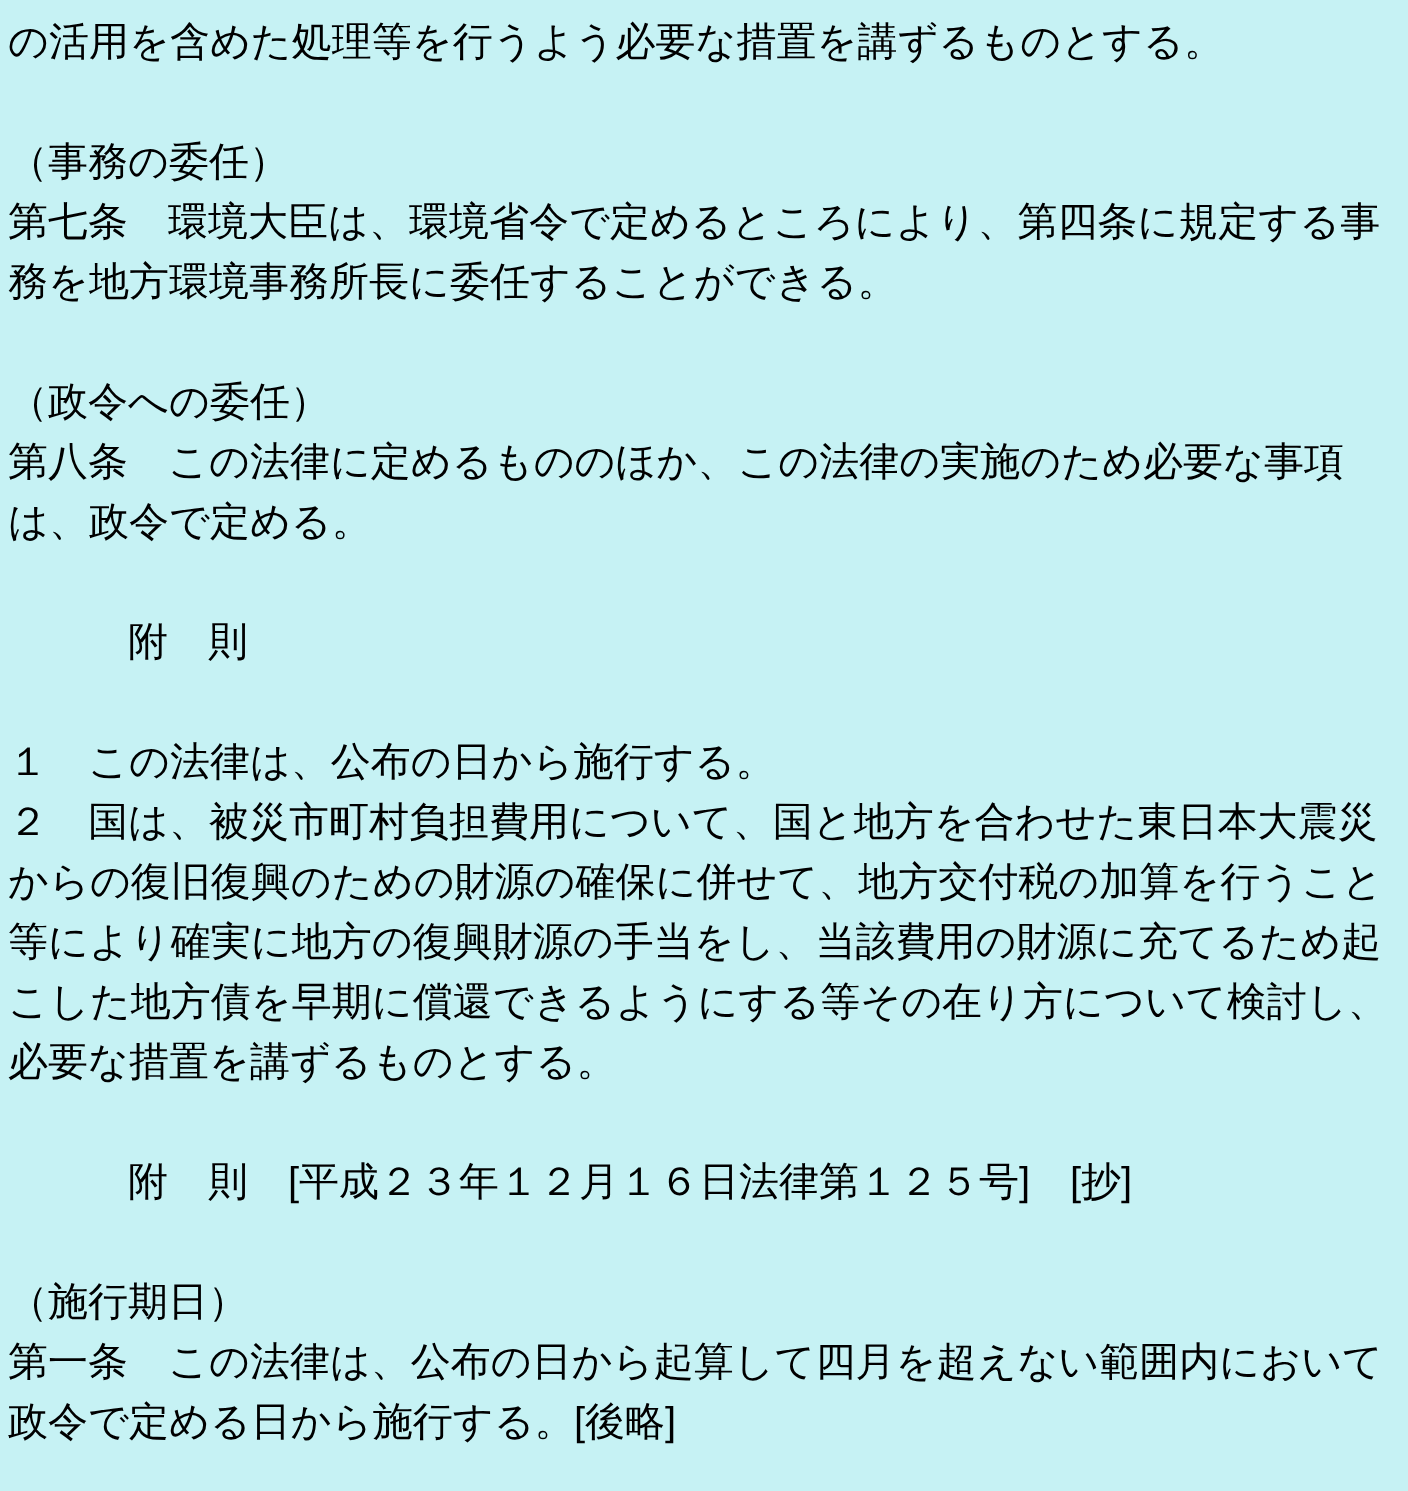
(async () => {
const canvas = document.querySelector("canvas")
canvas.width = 1408
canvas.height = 1491
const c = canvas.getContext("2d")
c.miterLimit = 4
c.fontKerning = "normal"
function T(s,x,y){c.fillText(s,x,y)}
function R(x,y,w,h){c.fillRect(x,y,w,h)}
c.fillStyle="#c6f2f4"
R(0,0,1408,1491)
c.font="500 40px WenQuanYi Zen Hei"
c.fillStyle="#000"
T("の活用を含めた処理等を行うよう必要な措置を講ずるものとする。",8,55)
T("（事務の委任）",8,175)
T("第七条　環境大臣は、環境省令で定めるところにより、第四条に規定する事",8,235)
T("務を地方環境事務所長に委任することができる。",8,295)
T("（政令への委任）",8,415)
T("第八条　この法律に定めるもののほか、この法律の実施のため必要な事項",8,475)
T("は、政令で定める。",8,535)
T("附　則",128,655)
T("１　この法律は、公布の日から施行する。",8,775)
T("２　国は、被災市町村負担費用について、国と地方を合わせた東日本大震災",8,835)
T("からの復旧復興のための財源の確保に併せて、地方交付税の加算を行うこと",8,895)
T("等により確実に地方の復興財源の手当をし、当該費用の財源に充てるため起",8,955)
T("こした地方債を早期に償還できるようにする等その在り方について検討し、",8,1015)
T("必要な措置を講ずるものとする。",8,1075)
T("附　則",128,1195)
c.font="40px Liberation Sans"
T("[",288,1195)
c.font="500 40px WenQuanYi Zen Hei"
T("平成２３年１２月１６日法律第１２５号",299,1195)
c.font="40px Liberation Sans"
T("]",1019,1195)
T("[",1070,1195)
c.font="500 40px WenQuanYi Zen Hei"
T("抄",1081,1195)
c.font="40px Liberation Sans"
T("]",1121,1195)
c.font="500 40px WenQuanYi Zen Hei"
T("（施行期日）",8,1315)
T("第一条　この法律は、公布の日から起算して四月を超えない範囲内において",8,1375)
T("政令で定める日から施行する。",8,1435)
c.font="40px Liberation Sans"
T("[",574,1435)
c.font="500 40px WenQuanYi Zen Hei"
T("後略",585,1435)
c.font="40px Liberation Sans"
T("]",665,1435)
})()
